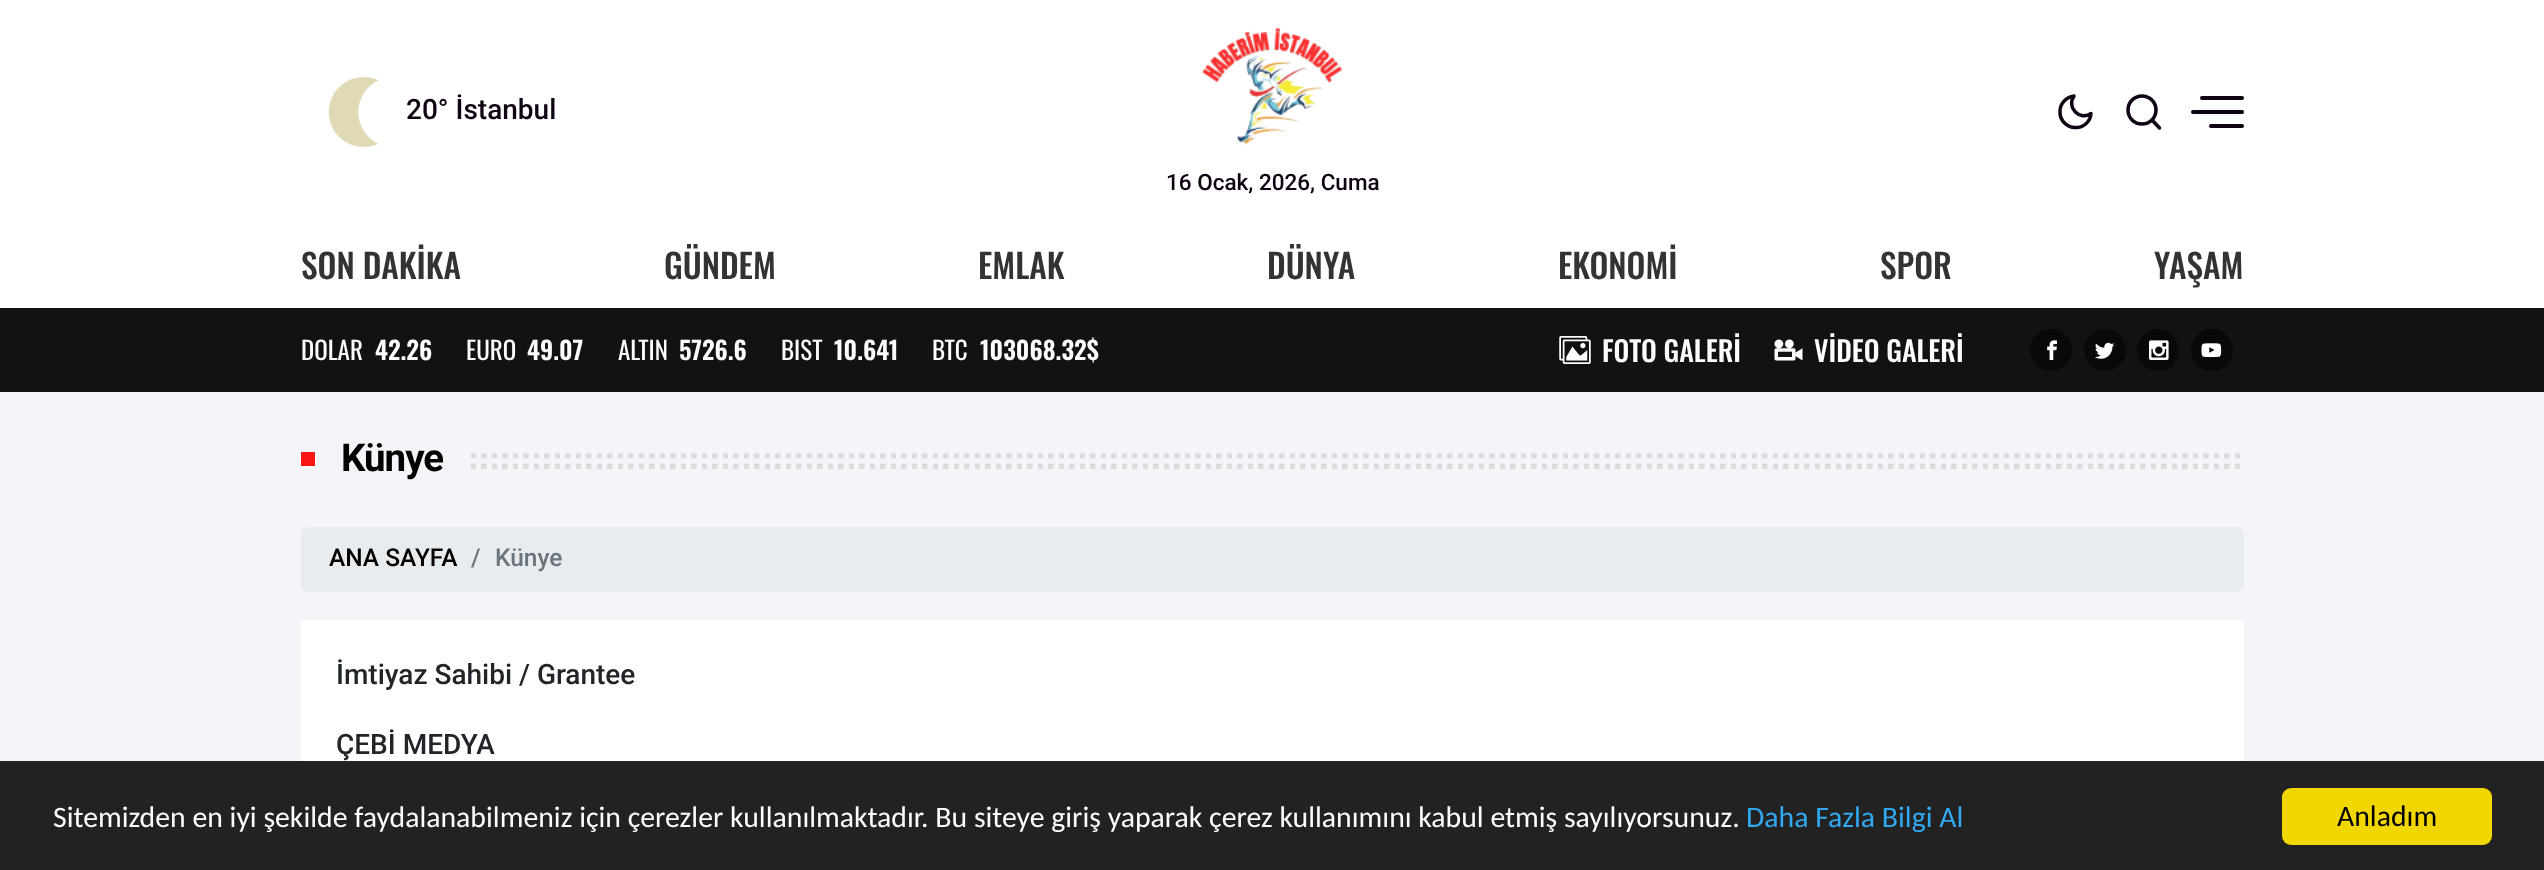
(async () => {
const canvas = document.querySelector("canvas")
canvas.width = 2544
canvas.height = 870
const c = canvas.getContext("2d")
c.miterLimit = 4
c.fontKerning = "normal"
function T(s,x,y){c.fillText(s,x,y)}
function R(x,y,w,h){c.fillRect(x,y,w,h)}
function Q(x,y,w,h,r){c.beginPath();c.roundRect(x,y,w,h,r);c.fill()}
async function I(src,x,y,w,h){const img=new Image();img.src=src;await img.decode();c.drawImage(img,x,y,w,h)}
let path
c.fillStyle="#f4f5f9"
R(0,0,2544,870)
c.fillStyle="#fff"
R(0,0,2544,308)
await I("1.png",328,76,51,72)
c.font="500 28px Roboto"
c.fillStyle="#0f0212"
T("20° İstanbul",406,119)
path = new Path2D("M2091 113.5c-.5 8-7.5 14.5-16 14c-8 0-15-7-15-15c-.5-8.5 6-15.5 14-16.5c-8 11.5 6 25.5 17 17.5z")
c.strokeStyle="#0f0212"
c.lineWidth=3.5
c.lineCap="round"
c.lineJoin="round"
c.stroke(path)
c.beginPath()
c.arc(2142,110,14,0,7)
c.stroke()
path = new Path2D("M2159.5 128l-7.5-8")
c.stroke(path)
Q(2200,96,44,4,2)
Q(2191,110,53,4,2)
Q(2209,124,35,4,2)
await I("2.png",1202,28,141,117)
c.font="500 22.5px Roboto"
T("16 Ocak, 2026, Cuma",1166,190)
c.font="500 33.5px Oswald"
c.fillStyle="#333"
T("SON DAKİKA",301,279)
T("GÜNDEM",664,279)
T("EMLAK",978,279)
T("DÜNYA",1267,279)
T("EKONOMİ",1558,279)
T("SPOR",1880,279)
T("YAŞAM",2154,279)
c.fillStyle="#121212"
R(0,308,2544,84)
c.font="25px Oswald"
c.fillStyle="#fcfcfc"
T("DOLAR",301,360)
c.font="600 25px Oswald"
T("42.26",375,360)
c.font="25px Oswald"
T("EURO",466,360)
c.font="600 25px Oswald"
T("49.07",527,360)
c.font="25px Oswald"
T("ALTIN",618,360)
c.font="600 25px Oswald"
T("5726.6",679,360)
c.font="25px Oswald"
T("BIST",781,360)
c.font="600 25px Oswald"
T("10.641",834,360)
c.font="25px Oswald"
T("BTC",932,360)
c.font="600 25px Oswald"
T("103068.32$",980,360)
await I("3.png",1559,336,32,28)
c.font="500 28px Oswald"
T("FOTO GALERİ",1602,362)
await I("4.png",1774,339,29,22)
T("VİDEO GALERİ",1814,362)
c.fillStyle="#090909"
c.beginPath()
c.arc(2051,350,21,0,7)
c.fill()
await I("5.png",2047,340,10,20)
c.beginPath()
c.arc(2105,350,21,0,7)
c.fill()
await I("6.png",2095,342,20,17)
c.beginPath()
c.arc(2158,350,21,0,7)
c.fill()
await I("7.png",2149,340,20,20)
c.beginPath()
c.arc(2212,350,21,0,7)
c.fill()
await I("8.png",2201,343,21,15)
c.fillStyle="#f71515"
R(301,452,14,14)
c.letterSpacing="-1px"
c.font="bold 38.5px Roboto"
c.fillStyle="#000"
T("Künye",341,471)
await I("9.png",471,453,1769,16)
c.fillStyle="#e9ecef"
Q(301,527,1943,65,7)
c.letterSpacing="0px"
c.font="500 24.5px Roboto"
c.fillStyle="#000"
T("ANA SAYFA",329,566)
c.fillStyle="#6c757d"
T("/",471,566)
T("Künye",495,566)
c.fillStyle="#fff"
R(301,620,1943,141)
c.font="500 28px Roboto"
c.fillStyle="#212529"
T("İmtiyaz Sahibi / Grantee",336,684)
T("ÇEBİ MEDYA",336,754)
c.fillStyle="#222"
R(0,761,2544,109)
c.font="29.75px Carlito"
c.fillStyle="#fcfcfc"
T("Sitemizden en iyi şekilde faydalanabilmeniz için çerezler kullanılmaktadır. Bu siteye giriş yaparak çerez kullanımını kabul etmiş sayılıyorsunuz.",53,827)
c.fillStyle="#31a8f0"
T("Daha Fazla Bilgi Al",1746,827)
c.fillStyle="#f1d600"
Q(2282,788,210,57,9)
c.fillStyle="#000"
T("Anladım",2337,826)
})()
